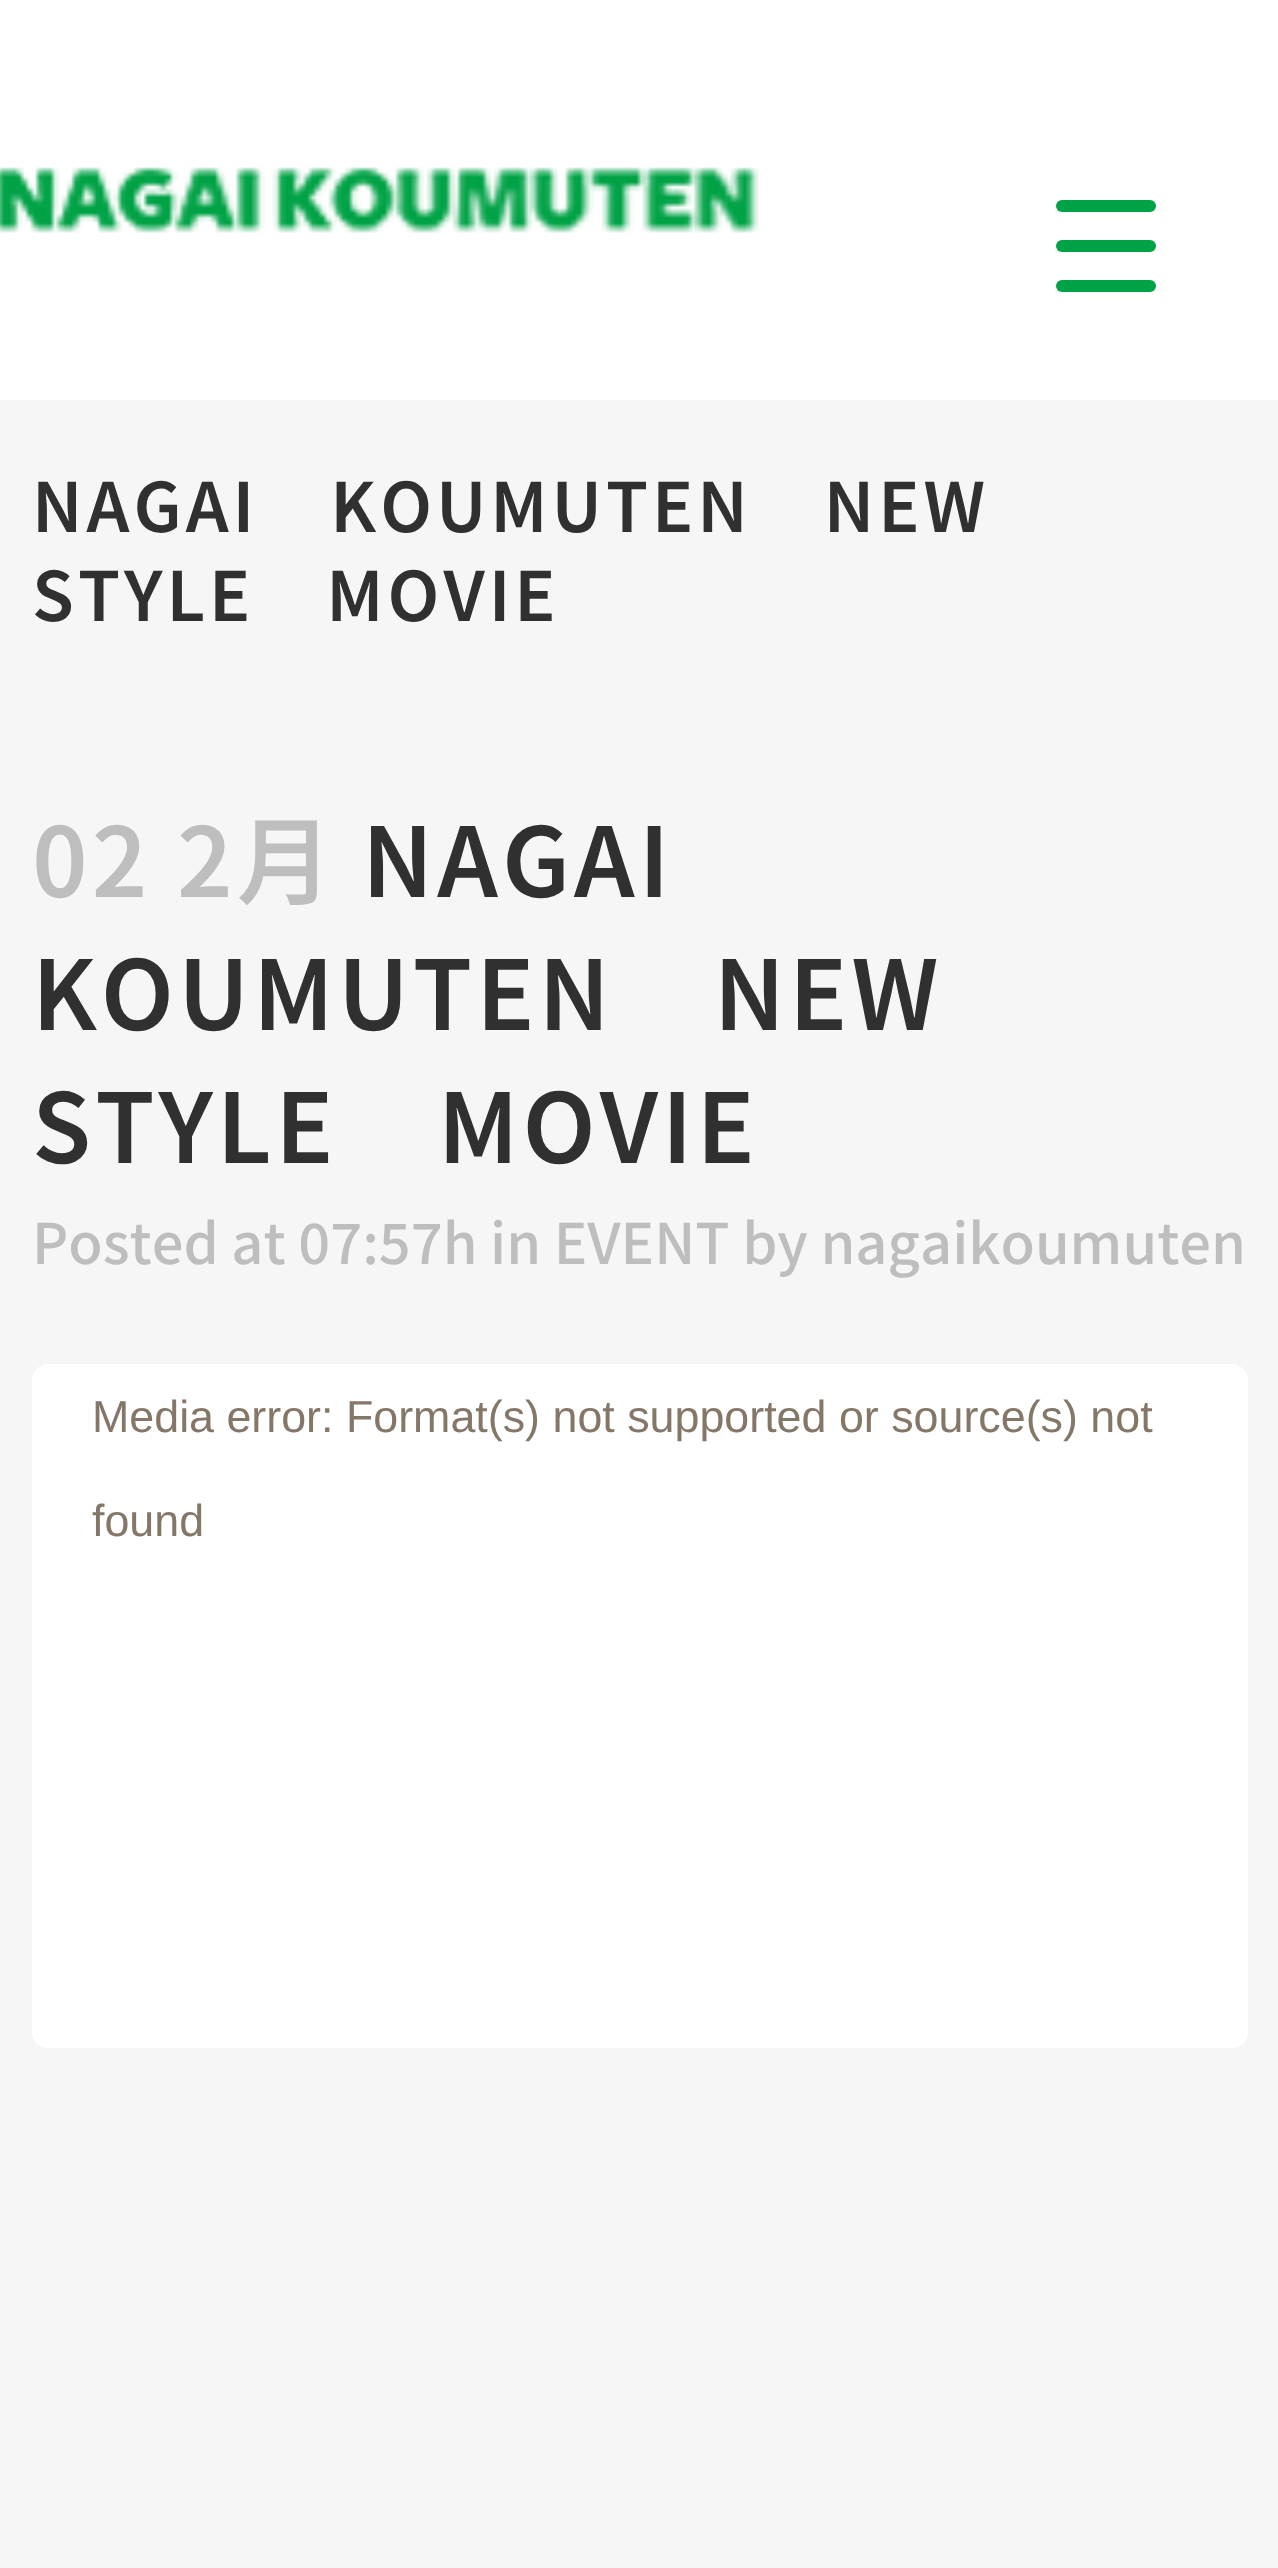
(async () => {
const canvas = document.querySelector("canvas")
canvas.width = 1278
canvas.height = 2568
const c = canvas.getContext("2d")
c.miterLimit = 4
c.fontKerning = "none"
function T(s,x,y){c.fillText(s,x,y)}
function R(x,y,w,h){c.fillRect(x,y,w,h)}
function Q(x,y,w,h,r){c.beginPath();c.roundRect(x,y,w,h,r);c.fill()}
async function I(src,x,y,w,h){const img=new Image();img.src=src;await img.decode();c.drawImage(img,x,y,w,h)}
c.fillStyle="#f6f6f6"
R(0,0,1278,2568)
c.fillStyle="#fff"
R(0,0,1278,400)
c.fillStyle="#00a246"
Q(1056,240,100,12,6)
Q(1056,200,100,12,6)
Q(1056,280,100,12,6)
await I("1.png",0,167,759,66)
c.letterSpacing="4px"
c.font="600 68px Noto Sans JP"
c.fillStyle="#303030"
T("NAGAI　KOUMUTEN　NEW",32,532)
T("STYLE　MOVIE",32,621)
c.font="600 96px Noto Sans JP"
c.fillStyle="#bebebe"
T("02 2月",32,897)
c.fillStyle="#303030"
T("NAGAI",362,897)
T("KOUMUTEN　NEW",32,1030)
T("STYLE　MOVIE",32,1163)
c.letterSpacing="0px"
c.font="500 56px Noto Sans JP"
c.fillStyle="#bebebe"
T("Posted at 07:57h in EVENT by nagaikoumuten",32,1264)
c.fillStyle="#fff"
Q(32,1364,1216,684,16)
c.font="44.8px Liberation Sans"
c.fillStyle="#847768"
T("Media error: Format(s) not supported or source(s) not",92,1432)
T("found",92,1536)
})()
